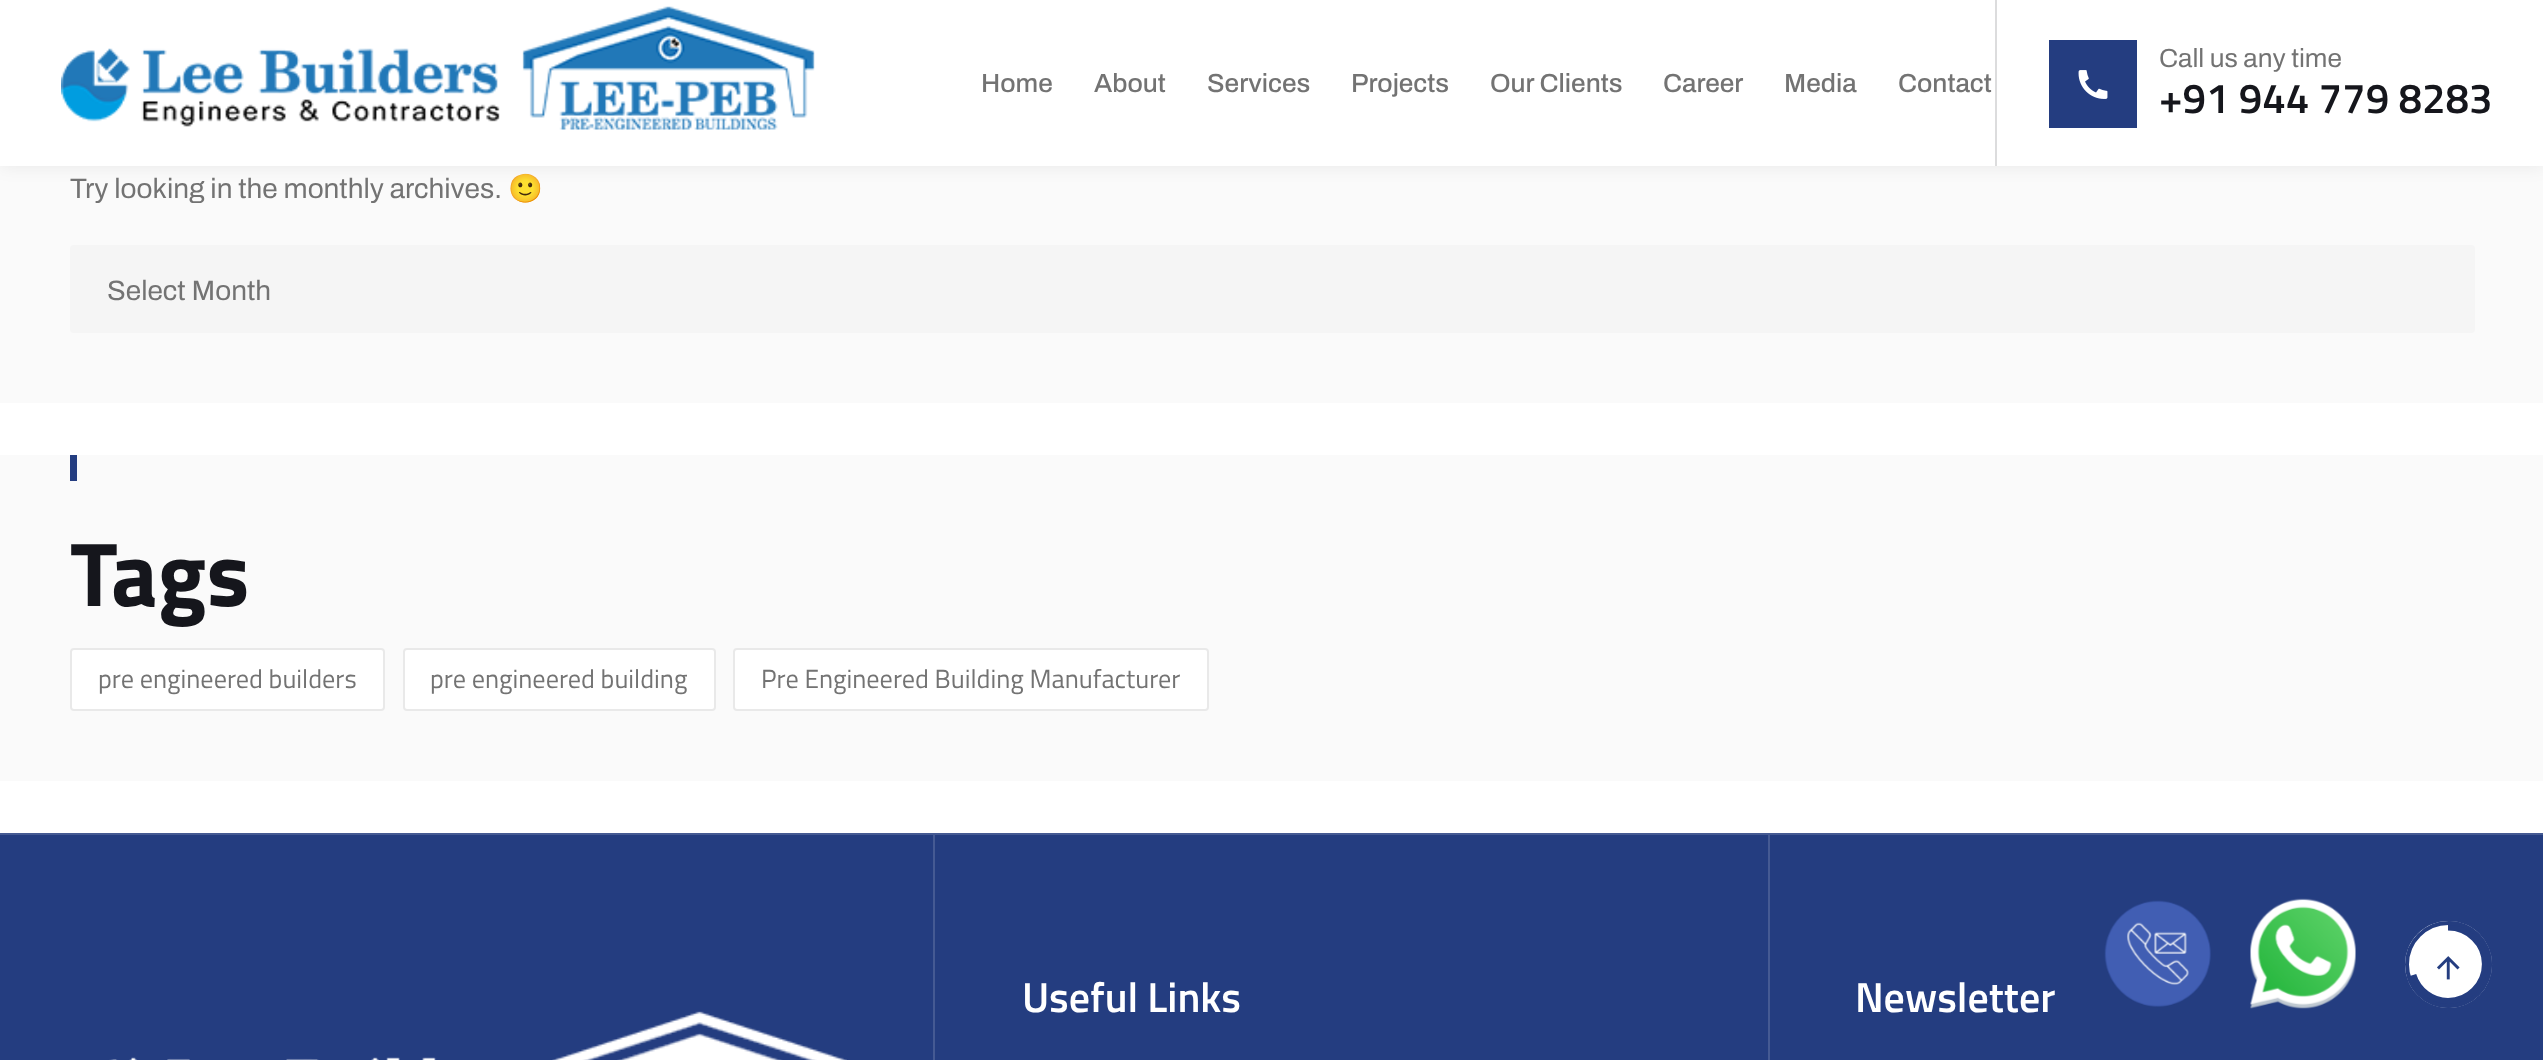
(async () => {
const canvas = document.querySelector("canvas")
canvas.width = 2543
canvas.height = 1060
const c = canvas.getContext("2d")
c.miterLimit = 4
c.fontKerning = "normal"
function T(s,x,y){c.fillText(s,x,y)}
function R(x,y,w,h){c.fillRect(x,y,w,h)}
function Q(x,y,w,h,r){c.beginPath();c.roundRect(x,y,w,h,r);c.fill()}
async function I(src,x,y,w,h){const img=new Image();img.src=src;await img.decode();c.drawImage(img,x,y,w,h)}
let path
c.fillStyle="#fff"
R(0,0,2543,1060)
c.fillStyle="#fafafa"
R(0,166,2543,237)
c.fillStyle="#00000012"
c.filter="blur(9px)"
c.beginPath()
c.rect(0,0,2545,166)
c.fill()
c.filter="none"
c.fillStyle="#fff"
R(0,0,2543,166)
await I("1.png",61,6,754,124)
c.font="500 26.25px Archivo"
c.fillStyle="#737373"
T("Home",981,92)
T("About",1094,92)
T("Services",1207,92)
T("Projects",1351,92)
T("Our Clients",1490,92)
T("Career",1663,92)
T("Media",1784,92)
T("Contact",1898,92)
c.fillStyle="#dcdcdd"
R(1995,0,2,166)
c.fillStyle="#243d80"
R(2049,40,88,88)
await I("2.png",2078,70,30,29)
c.font="26.25px Archivo"
c.fillStyle="#737373"
T("Call us any time",2159,67)
c.font="600 42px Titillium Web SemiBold"
c.fillStyle="#15161c"
T("+91 944 779 8283",2159,113)
c.font="28px Archivo"
c.fillStyle="#737373"
T("Try looking in the monthly archives.",70,198)
c.font="28px Noto Color Emoji"
T("🙂",508,198)
c.fillStyle="#f5f5f5"
Q(70,245,2405,88,4)
c.font="28px Archivo"
c.fillStyle="#737373"
T("Select Month",107,300)
c.fillStyle="#fafafa"
R(0,455,2543,326)
c.fillStyle="#243d80"
R(70,455,7,26)
c.font="bold 91px Titillium Web"
c.fillStyle="#15161c"
T("Tags",70,606)
c.fillStyle="#fff"
c.beginPath()
c.roundRect(71,649,313,61,3)
c.fill()
c.strokeStyle="#e9e9e9"
c.lineWidth=2
c.stroke()
c.font="26.25px Titillium Web"
c.fillStyle="#737373"
T("pre engineered builders",98,688)
c.fillStyle="#fff"
c.beginPath()
c.roundRect(404,649,311,61,3)
c.fill()
c.stroke()
c.fillStyle="#737373"
T("pre engineered building",430,688)
c.fillStyle="#fff"
c.beginPath()
c.roundRect(734,649,474,61,3)
c.fill()
c.stroke()
c.fillStyle="#737373"
T("Pre Engineered Building Manufacturer",761,688)
c.fillStyle="#243d80"
R(0,835,2543,225)
c.fillStyle="#455a93"
R(0,833,2543,2)
R(933,835,2,225)
c.font="600 42px Titillium Web SemiBold"
c.fillStyle="#fff"
T("Useful Links",1022,1012)
c.fillStyle="#455a93"
R(1768,835,2,225)
c.fillStyle="#fff"
T("Newsletter",1855,1012)
await I("3.png",109,1011,738,49)
await I("4.png",2104,900,107,107)
await I("5.png",2250,898,106,111)
c.beginPath()
c.arc(2448.5,964.5,43.5,0,7)
c.fill()
c.save()
c.beginPath()
c.roundRect(2405,921,87,87,43.5)
c.clip()
path = new Path2D("M2448 922c23.5 0 42.5 19 42.5 42c0 23.5-19 42.5-42.5 42.5c-18.5 0-34.5-12.5-40-30")
c.strokeStyle="#243d80"
c.lineWidth=17.2
c.stroke(path)
c.restore()
c.beginPath()
c.arc(2448.5,964.5,41.5,0,7)
c.strokeStyle="#243d80"
c.lineWidth=4
c.stroke()
await I("6.png",2437,956,23,24)
})()
